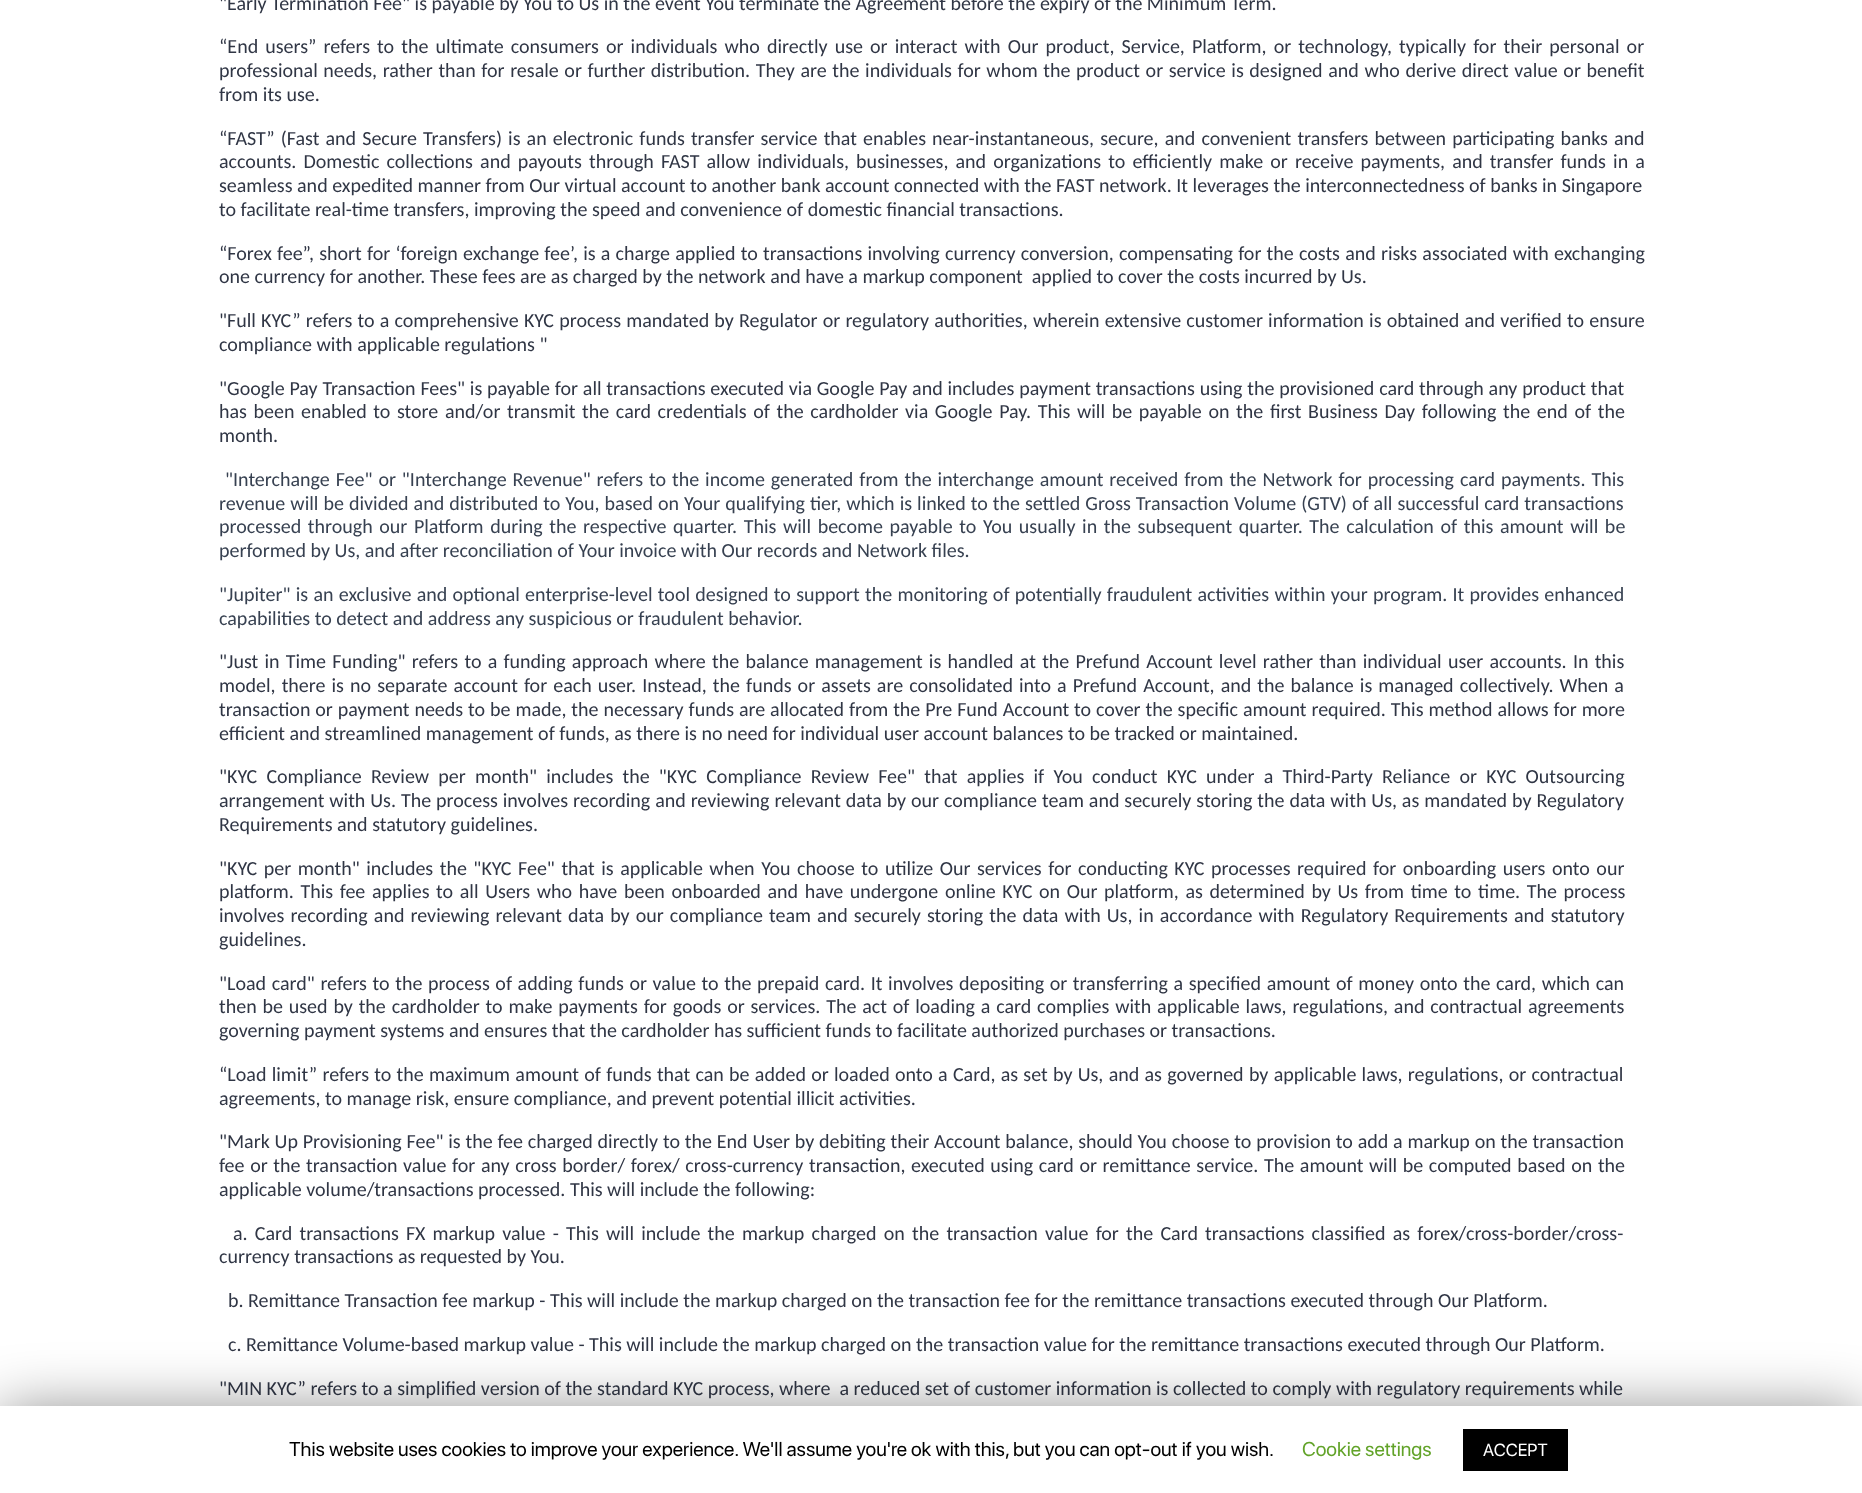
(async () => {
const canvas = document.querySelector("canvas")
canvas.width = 1862
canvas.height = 1493
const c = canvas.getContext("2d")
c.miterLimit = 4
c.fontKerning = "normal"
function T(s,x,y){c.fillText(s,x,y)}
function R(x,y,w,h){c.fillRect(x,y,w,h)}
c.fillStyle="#fff"
R(0,0,1862,1493)
c.font="20px Carlito"
c.fillStyle="#303645"
T("\"Early Termination Fee\" is payable by You to Us in the event You terminate the Agreement before the expiry of the Minimum Term.",219,10)
c.wordSpacing="2.6px"
T("“End users” refers to the ultimate consumers or individuals who directly use or interact with Our product, Service, Platform, or technology, typically for their personal or",219,53)
c.wordSpacing="1.1px"
T("professional needs, rather than for resale or further distribution. They are the individuals for whom the product or service is designed and who derive direct value or benefit",219,77)
c.wordSpacing="0px"
T("from its use.",219,101)
c.wordSpacing="1.6px"
T("“FAST” (Fast and Secure Transfers) is an electronic funds transfer service that enables near-instantaneous, secure, and convenient transfers between participating banks and",219,145)
c.wordSpacing="2.6px"
T("accounts. Domestic collections and payouts through FAST allow individuals, businesses, and organizations to efficiently make or receive payments, and transfer funds in a",219,168)
c.wordSpacing="0px"
T("seamless and expedited manner from Our virtual account to another bank account connected with the FAST network. It leverages the interconnectedness of banks in Singapore",219,192)
T("to facilitate real-time transfers, improving the speed and convenience of domestic financial transactions.",219,216)
c.wordSpacing="0.7px"
T("“Forex fee”, short for ‘foreign exchange fee’, is a charge applied to transactions involving currency conversion, compensating for the costs and risks associated with exchanging",219,260)
c.wordSpacing="0px"
T("one currency for another. These fees are as charged by the network and have a markup component  applied to cover the costs incurred by Us.",219,283)
c.wordSpacing="0.7px"
T("\"Full KYC” refers to a comprehensive KYC process mandated by Regulator or regulatory authorities, wherein extensive customer information is obtained and verified to ensure",219,327)
c.wordSpacing="0px"
T("compliance with applicable regulations \"",219,351)
c.wordSpacing="0.25px"
T("\"Google Pay Transaction Fees\" is payable for all transactions executed via Google Pay and includes payment transactions using the provisioned card through any product that",219,395)
c.wordSpacing="2.1px"
T("has been enabled to store and/or transmit the card credentials of the cardholder via Google Pay. This will be payable on the first Business Day following the end of the",219,418)
c.wordSpacing="0px"
T("month.",219,442)
c.wordSpacing="1.4px"
c.fillStyle="#374151"
T("\"Interchange Fee\" or \"Interchange Revenue\" refers to the income generated from the interchange amount received from the Network for processing card payments. This",225,486)
c.wordSpacing="0.5px"
T("revenue will be divided and distributed to You, based on Your qualifying tier, which is linked to the settled Gross Transaction Volume (GTV) of all successful card transactions",219,510)
c.wordSpacing="2.1px"
T("processed through our Platform during the respective quarter. This will become payable to You usually in the subsequent quarter. The calculation of this amount will be",219,533)
c.wordSpacing="0px"
T("performed by Us, and after reconciliation of Your invoice with Our records and Network files.",219,557)
c.wordSpacing="0.75px"
T("\"Jupiter\" is an exclusive and optional enterprise-level tool designed to support the monitoring of potentially fraudulent activities within your program. It provides enhanced",219,601)
c.wordSpacing="0px"
T("capabilities to detect and address any suspicious or fraudulent behavior.",219,625)
c.wordSpacing="1.7px"
c.fillStyle="#303645"
T("\"Just in Time Funding\" refers to a funding approach where the balance management is handled at the Prefund Account level rather than individual user accounts. In this",219,668)
c.wordSpacing="1.55px"
T("model, there is no separate account for each user. Instead, the funds or assets are consolidated into a Prefund Account, and the balance is managed collectively. When a",219,692)
c.wordSpacing="0.4px"
T("transaction or payment needs to be made, the necessary funds are allocated from the Pre Fund Account to cover the specific amount required. This method allows for more",219,716)
c.wordSpacing="0px"
T("efficient and streamlined management of funds, as there is no need for individual user account balances to be tracked or maintained.",219,740)
c.wordSpacing="4.7px"
T("\"KYC Compliance Review per month\" includes the \"KYC Compliance Review Fee\" that applies if You conduct KYC under a Third-Party Reliance or KYC Outsourcing",219,783)
c.wordSpacing="0.4px"
T("arrangement with Us. The process involves recording and reviewing relevant data by our compliance team and securely storing the data with Us, as mandated by Regulatory",219,807)
c.wordSpacing="0px"
T("Requirements and statutory guidelines.",219,831)
c.wordSpacing="2px"
T("\"KYC per month\" includes the \"KYC Fee\" that is applicable when You choose to utilize Our services for conducting KYC processes required for onboarding users onto our",219,875)
c.wordSpacing="2.1px"
T("platform. This fee applies to all Users who have been onboarded and have undergone online KYC on Our platform, as determined by Us from time to time. The process",219,898)
c.wordSpacing="1.6px"
T("involves recording and reviewing relevant data by our compliance team and securely storing the data with Us, in accordance with Regulatory Requirements and statutory",219,922)
c.wordSpacing="0px"
T("guidelines.",219,946)
c.wordSpacing="1.1px"
T("\"Load card\" refers to the process of adding funds or value to the prepaid card. It involves depositing or transferring a specified amount of money onto the card, which can",219,990)
c.wordSpacing="1.3px"
T("then be used by the cardholder to make payments for goods or services. The act of loading a card complies with applicable laws, regulations, and contractual agreements",219,1013)
c.wordSpacing="0px"
T("governing payment systems and ensures that the cardholder has sufficient funds to facilitate authorized purchases or transactions.",219,1037)
c.wordSpacing="0.75px"
T("“Load limit” refers to the maximum amount of funds that can be added or loaded onto a Card, as set by Us, and as governed by applicable laws, regulations, or contractual",219,1081)
c.wordSpacing="0px"
T("agreements, to manage risk, ensure compliance, and prevent potential illicit activities.",219,1105)
c.wordSpacing="0.3px"
T("\"Mark Up Provisioning Fee\" is the fee charged directly to the End User by debiting their Account balance, should You choose to provision to add a markup on the transaction",219,1148)
c.wordSpacing="1.1px"
T("fee or the transaction value for any cross border/ forex/ cross-currency transaction, executed using card or remittance service. The amount will be computed based on the",219,1172)
c.wordSpacing="0px"
T("applicable volume/transactions processed. This will include the following:",219,1196)
c.wordSpacing="2.7px"
T("a. Card transactions FX markup value - This will include the markup charged on the transaction value for the Card transactions classified as forex/cross-border/cross-",233,1240)
c.wordSpacing="0px"
T("currency transactions as requested by You.",219,1263)
T("b. Remittance Transaction fee markup - This will include the markup charged on the transaction fee for the remittance transactions executed through Our Platform.",228,1307)
T("c. Remittance Volume-based markup value - This will include the markup charged on the transaction value for the remittance transactions executed through Our Platform.",228,1351)
T("\"MIN KYC” refers to a simplified version of the standard KYC process, where  a reduced set of customer information is collected to comply with regulatory requirements while",219,1395)
c.fillStyle="#00000080"
c.filter="blur(31px)"
c.beginPath()
c.rect(0,1413,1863,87)
c.fill()
c.filter="none"
c.fillStyle="#fff"
R(0,1406,1862,87)
c.font="20px SF Pro Display"
c.fillStyle="#000"
T("This website uses cookies to improve your experience. We'll assume you're ok with this, but you can opt-out if you wish.",289,1456)
c.fillStyle="#62a329"
T("Cookie settings",1302,1456)
c.fillStyle="#000"
R(1463,1429,105,42)
c.font="17.5px SF Pro Display"
c.fillStyle="#fff"
T("ACCEPT",1483,1456)
})()
